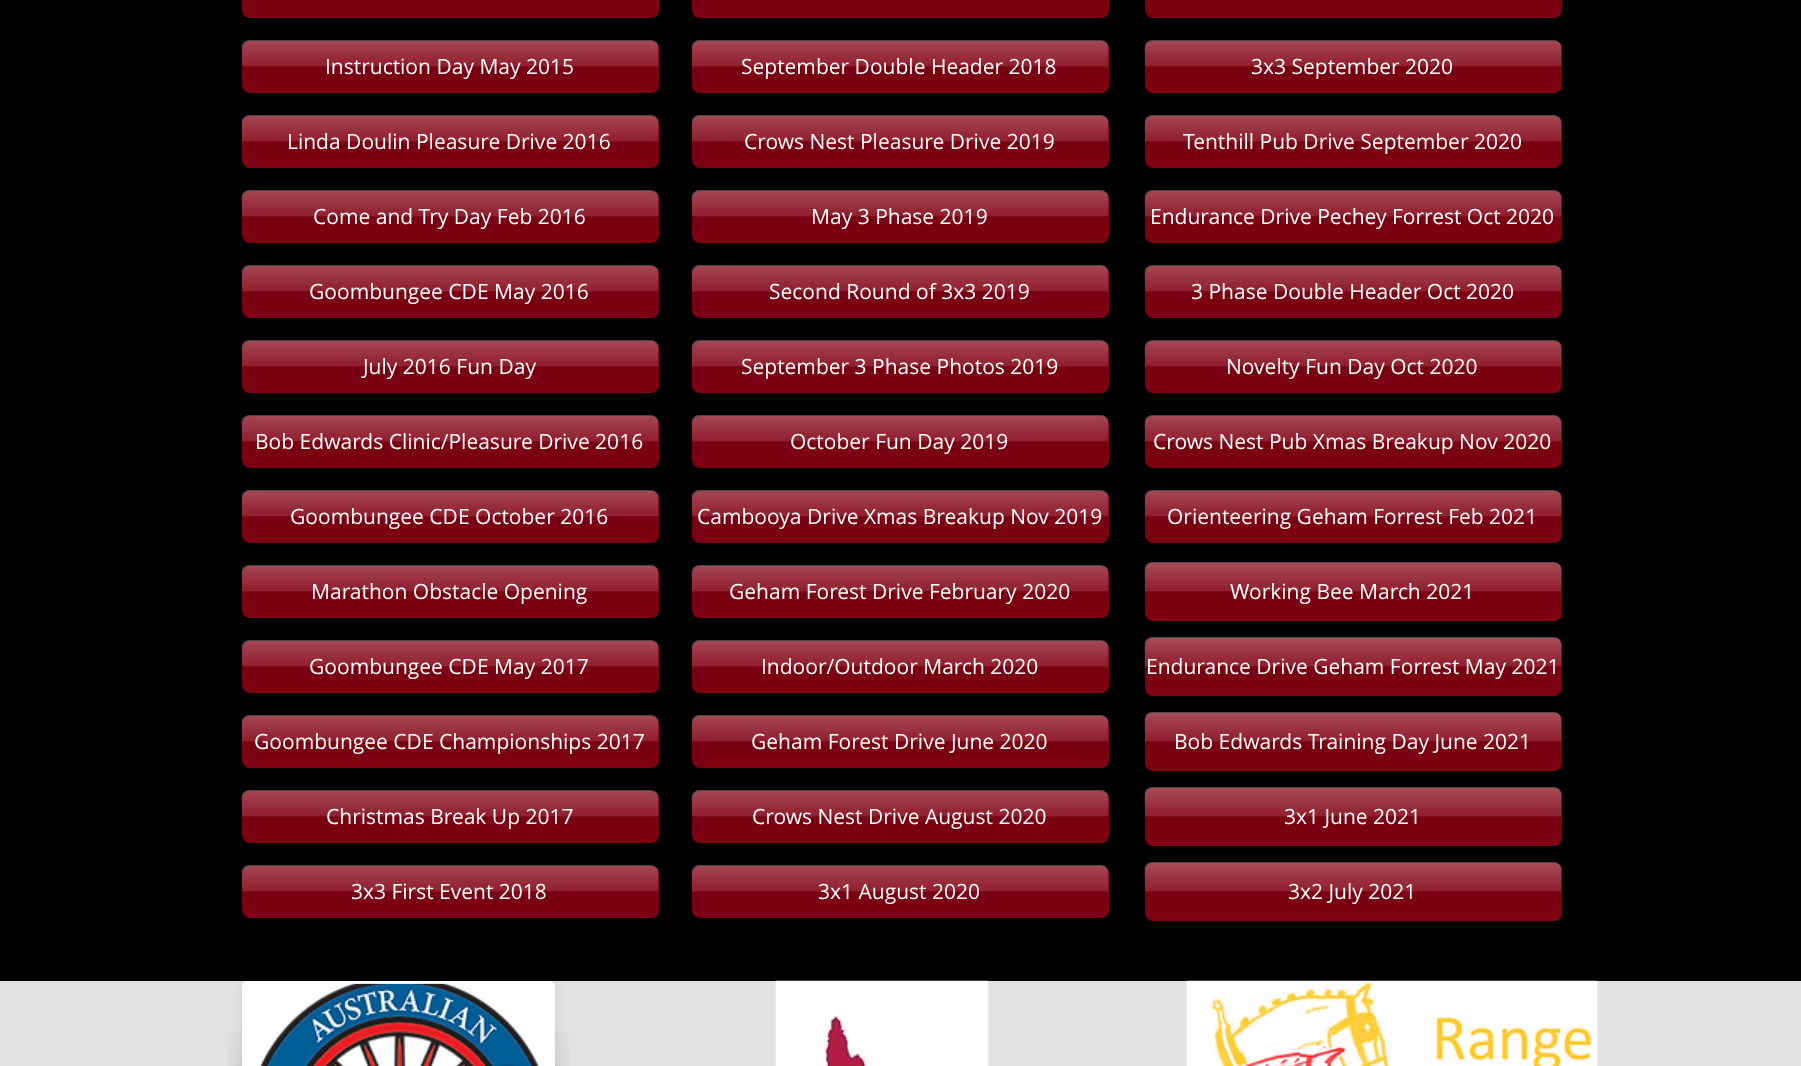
(async () => {
const canvas = document.querySelector("canvas")
canvas.width = 1801
canvas.height = 1066
const c = canvas.getContext("2d")
c.miterLimit = 4
c.fontKerning = "normal"
function T(s,x,y){c.fillText(s,x,y)}
function R(x,y,w,h){c.fillRect(x,y,w,h)}
function Q(x,y,w,h,r){c.beginPath();c.roundRect(x,y,w,h,r);c.fill()}
async function I(src,x,y,w,h){const img=new Image();img.src=src;await img.decode();c.drawImage(img,x,y,w,h)}
c.fillStyle="#000"
R(0,0,1801,1066)
c.fillStyle="#820013"
Q(242,-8,417,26,8)
await I("1.png",242,0,416,17)
Q(692,-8,417,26,8)
await I("1.png",692,0,416,17)
Q(1145,-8,417,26,8)
await I("1.png",1145,0,416,17)
Q(242,41,417,52,8)
await I("2.png",241,40,418,52)
c.font="21px Open Sans"
c.fillStyle="#fff"
T("Instruction Day May 2015",325,74)
c.fillStyle="#820013"
Q(692,41,417,52,8)
await I("2.png",691,40,418,52)
c.fillStyle="#fff"
T("September Double Header 2018",741,74)
c.fillStyle="#820013"
Q(1145,41,417,52,8)
await I("2.png",1144,40,418,52)
c.fillStyle="#fff"
T("3x3 September 2020",1251,74)
c.fillStyle="#820013"
Q(242,116,417,52,8)
await I("2.png",241,115,418,52)
c.fillStyle="#fff"
T("Linda Doulin Pleasure Drive 2016",287,149)
c.fillStyle="#820013"
Q(692,116,417,52,8)
await I("2.png",691,115,418,52)
c.fillStyle="#fff"
T("Crows Nest Pleasure Drive 2019",744,149)
c.fillStyle="#820013"
Q(1145,116,417,52,8)
await I("2.png",1144,115,418,52)
c.fillStyle="#fff"
T("Tenthill Pub Drive September 2020",1183,149)
c.fillStyle="#820013"
Q(242,191,417,52,8)
await I("2.png",241,190,418,52)
c.fillStyle="#fff"
T("Come and Try Day Feb 2016",313,224)
c.fillStyle="#820013"
Q(692,191,417,52,8)
await I("2.png",691,190,418,52)
c.fillStyle="#fff"
T("May 3 Phase 2019",811,224)
c.fillStyle="#820013"
Q(1145,191,417,52,8)
await I("2.png",1144,190,418,52)
c.fillStyle="#fff"
T("Endurance Drive Pechey Forrest Oct 2020",1150,224)
c.fillStyle="#820013"
Q(242,266,417,52,8)
await I("2.png",241,265,418,52)
c.fillStyle="#fff"
T("Goombungee CDE May 2016",309,299)
c.fillStyle="#820013"
Q(692,266,417,52,8)
await I("2.png",691,265,418,52)
c.fillStyle="#fff"
T("Second Round of 3x3 2019",769,299)
c.fillStyle="#820013"
Q(1145,266,417,52,8)
await I("2.png",1144,265,418,52)
c.fillStyle="#fff"
T("3 Phase Double Header Oct 2020",1191,299)
c.fillStyle="#820013"
Q(242,341,417,52,8)
await I("2.png",241,340,418,52)
c.fillStyle="#fff"
T("July 2016 Fun Day",363,374)
c.fillStyle="#820013"
Q(692,341,417,52,8)
await I("2.png",691,340,418,52)
c.fillStyle="#fff"
T("September 3 Phase Photos 2019",741,374)
c.fillStyle="#820013"
Q(1145,341,417,52,8)
await I("2.png",1144,340,418,52)
c.fillStyle="#fff"
T("Novelty Fun Day Oct 2020",1226,374)
c.fillStyle="#820013"
Q(242,416,417,52,8)
await I("2.png",241,415,418,52)
c.fillStyle="#fff"
T("Bob Edwards Clinic/Pleasure Drive 2016",255,449)
c.fillStyle="#820013"
Q(692,416,417,52,8)
await I("2.png",691,415,418,52)
c.fillStyle="#fff"
T("October Fun Day 2019",790,449)
c.fillStyle="#820013"
Q(1145,416,417,52,8)
await I("2.png",1144,415,418,52)
c.fillStyle="#fff"
T("Crows Nest Pub Xmas Breakup Nov 2020",1153,449)
c.fillStyle="#820013"
Q(242,491,417,52,8)
await I("2.png",241,490,418,52)
c.fillStyle="#fff"
T("Goombungee CDE October 2016",290,524)
c.fillStyle="#820013"
Q(692,491,417,52,8)
await I("2.png",691,490,418,52)
c.fillStyle="#fff"
T("Cambooya Drive Xmas Breakup Nov 2019",697,524)
c.fillStyle="#820013"
Q(1145,491,417,52,8)
await I("2.png",1144,490,418,52)
c.fillStyle="#fff"
T("Orienteering Geham Forrest Feb 2021",1167,524)
c.fillStyle="#820013"
Q(242,566,417,52,8)
await I("2.png",241,565,418,52)
c.fillStyle="#fff"
T("Marathon Obstacle Opening",311,599)
c.fillStyle="#820013"
Q(692,566,417,52,8)
await I("2.png",691,565,418,52)
c.fillStyle="#fff"
T("Geham Forest Drive February 2020",729,599)
c.fillStyle="#820013"
Q(1145,563,417,58,8)
await I("3.png",1144,562,418,56)
c.fillStyle="#fff"
T("Working Bee March 2021",1230,599)
c.fillStyle="#820013"
Q(242,641,417,52,8)
await I("2.png",241,640,418,52)
c.fillStyle="#fff"
T("Goombungee CDE May 2017",309,674)
c.fillStyle="#820013"
Q(692,641,417,52,8)
await I("2.png",691,640,418,52)
c.fillStyle="#fff"
T("Indoor/Outdoor March 2020",761,674)
c.fillStyle="#820013"
Q(1145,638,417,58,8)
await I("3.png",1144,637,418,56)
c.fillStyle="#fff"
T("Endurance Drive Geham Forrest May 2021",1146,674)
c.fillStyle="#820013"
Q(242,716,417,52,8)
await I("2.png",241,715,418,52)
c.fillStyle="#fff"
T("Goombungee CDE Championships 2017",254,749)
c.fillStyle="#820013"
Q(692,716,417,52,8)
await I("2.png",691,715,418,52)
c.fillStyle="#fff"
T("Geham Forest Drive June 2020",751,749)
c.fillStyle="#820013"
Q(1145,713,417,58,8)
await I("3.png",1144,712,418,56)
c.fillStyle="#fff"
T("Bob Edwards Training Day June 2021",1174,749)
c.fillStyle="#820013"
Q(242,791,417,52,8)
await I("2.png",241,790,418,52)
c.fillStyle="#fff"
T("Christmas Break Up 2017",326,824)
c.fillStyle="#820013"
Q(692,791,417,52,8)
await I("2.png",691,790,418,52)
c.fillStyle="#fff"
T("Crows Nest Drive August 2020",752,824)
c.fillStyle="#820013"
Q(1145,788,417,58,8)
await I("3.png",1144,787,418,56)
c.fillStyle="#fff"
T("3x1 June 2021",1284,824)
c.fillStyle="#820013"
Q(242,866,417,52,8)
await I("2.png",241,865,418,52)
c.fillStyle="#fff"
T("3x3 First Event 2018",351,899)
c.fillStyle="#820013"
Q(692,866,417,52,8)
await I("2.png",691,865,418,52)
c.fillStyle="#fff"
T("3x1 August 2020",818,899)
c.fillStyle="#820013"
Q(1145,863,417,58,8)
await I("4.png",1144,862,418,56)
c.fillStyle="#fff"
T("3x2 July 2021",1288,899)
c.fillStyle="#e3e3e3"
R(0,981,1801,85)
c.fillStyle="#0000001a"
c.filter="blur(4px)"
c.beginPath()
c.roundRect(242,981,313,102,5)
c.fill()
c.filter="none"
c.fillStyle="#fff"
c.beginPath()
c.roundRect(243.5,982.5,310,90,3.5)
c.fill()
c.strokeStyle="#fff"
c.lineWidth=3
c.stroke()
await I("5.png",259,983,280,83)
await I("6.png",227,1031,15,35)
await I("7.png",555,1031,14,35)
await I("8.png",775,980,214,86)
await I("9.png",1186,980,412,86)
})()
